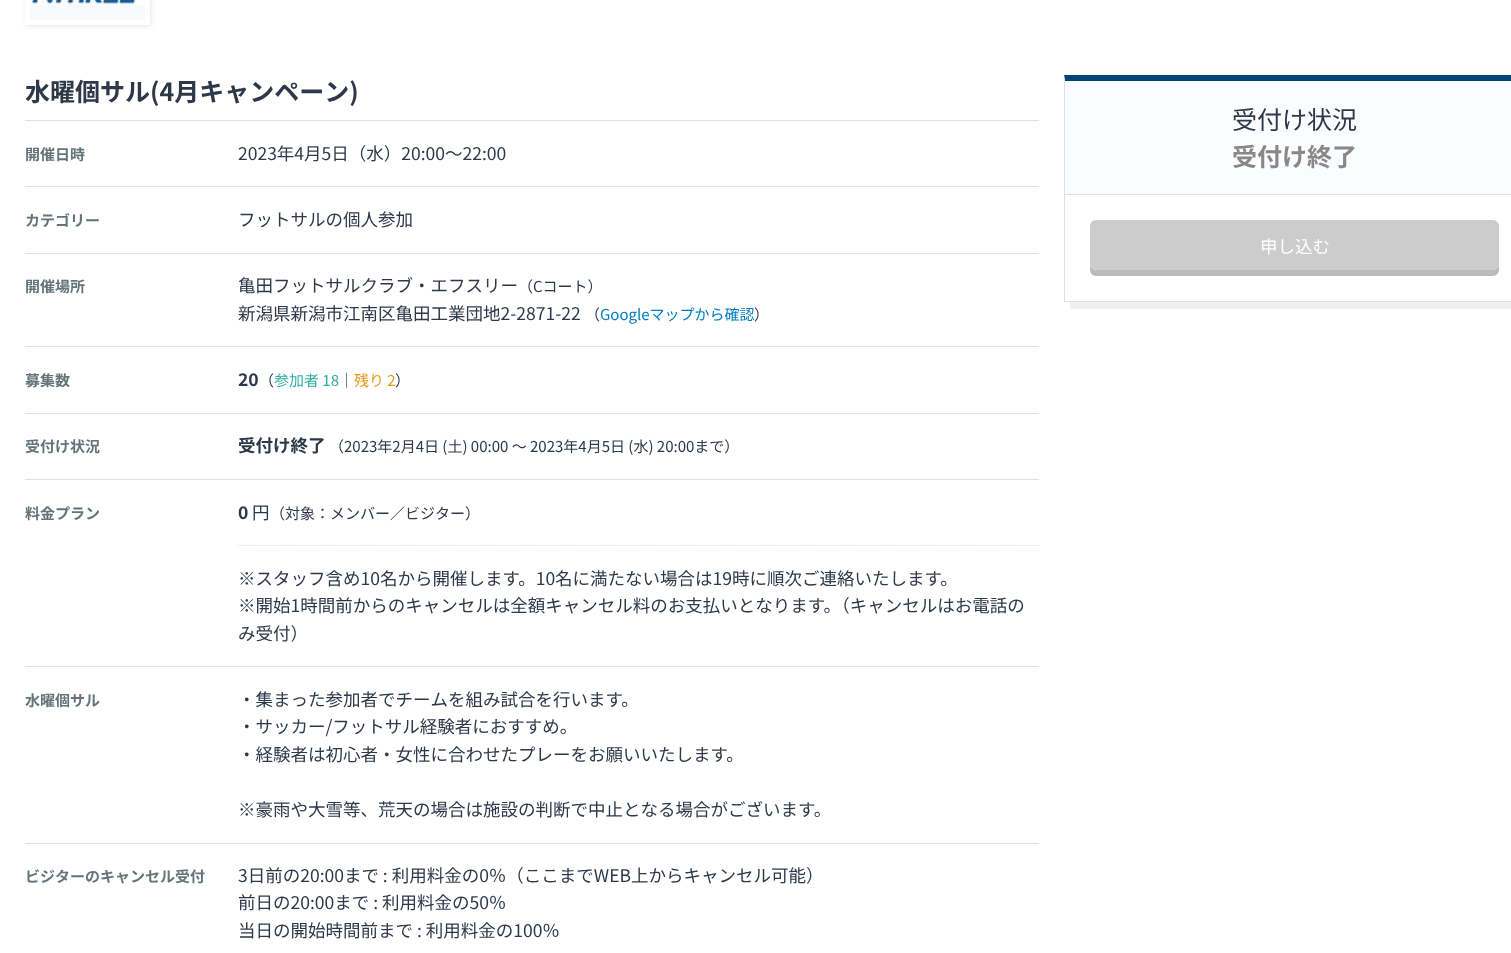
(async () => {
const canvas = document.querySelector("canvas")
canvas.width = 1511
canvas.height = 953
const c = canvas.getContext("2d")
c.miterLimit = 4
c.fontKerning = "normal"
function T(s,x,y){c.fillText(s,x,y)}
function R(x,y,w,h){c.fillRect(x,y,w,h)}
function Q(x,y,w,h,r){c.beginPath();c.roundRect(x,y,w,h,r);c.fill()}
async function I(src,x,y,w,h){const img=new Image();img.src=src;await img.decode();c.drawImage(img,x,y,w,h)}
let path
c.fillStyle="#fff"
R(0,0,1511,953)
c.fillStyle="#0000001a"
c.filter="blur(2.5px)"
c.beginPath()
c.rect(26,-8,125,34)
c.fill()
c.filter="none"
c.fillStyle="#f7f9fb"
R(30,4,115,16)
await I("1.png",30,0,115,5)
c.strokeStyle="#fff"
c.lineWidth=5
c.strokeRect(27.5,-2.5,120,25)
c.font="bold 25px Noto Sans JP"
c.fillStyle="#2e3849"
T("水曜個サル(4月キャンペーン)",25,101)
c.fillStyle="#dce1e9"
R(25,120,1014,1)
R(25,186,1014,1)
c.font="bold 15px Noto Sans JP"
c.fillStyle="#647479"
T("開催日時",25,160)
c.font="17.5px Noto Sans JP"
c.fillStyle="#2e3849"
T("2023年4月5日（水）20:00～22:00",238,160)
c.fillStyle="#dce1e9"
R(25,253,1014,1)
c.font="bold 15px Noto Sans JP"
c.fillStyle="#647479"
T("カテゴリー",25,226)
c.font="17.5px Noto Sans JP"
c.fillStyle="#2e3849"
T("フットサルの個人参加",238,226)
c.fillStyle="#dce1e9"
R(25,346,1014,1)
c.font="bold 15px Noto Sans JP"
c.fillStyle="#647479"
T("開催場所",25,292)
c.font="17.5px Noto Sans JP"
c.fillStyle="#2e3849"
T("亀田フットサルクラブ・エフスリー",238,292)
c.font="15px Noto Sans JP"
T("（Cコート）",518,292)
c.font="17.5px Noto Sans JP"
T("新潟県新潟市江南区亀田工業団地2-2871-22",238,320)
c.font="15px Noto Sans JP"
T("（",585,320)
c.fillStyle="#017cc2"
T("Googleマップから確認",600,320)
c.fillStyle="#2e3849"
T("）",754,320)
c.fillStyle="#dce1e9"
R(25,413,1014,1)
c.font="bold 15px Noto Sans JP"
c.fillStyle="#647479"
T("募集数",25,386)
c.font="bold 17.5px Noto Sans JP"
c.fillStyle="#2e3849"
T("20",238,386)
c.font="15px Noto Sans JP"
T("（",259,386)
c.fillStyle="#32ada3"
T("参加者 18",274,386)
c.fillStyle="#2e3849"
T("｜",339,386)
c.fillStyle="#e6991b"
T("残り 2",354,386)
c.fillStyle="#2e3849"
T("）",395,386)
c.fillStyle="#dce1e9"
R(25,479,1014,1)
c.font="bold 15px Noto Sans JP"
c.fillStyle="#647479"
T("受付け状況",25,452)
c.font="bold 17.5px Noto Sans JP"
c.fillStyle="#2e3849"
T("受付け終了",238,452)
c.font="15px Noto Sans JP"
T("（2023年2月4日 (土) 00:00 〜 2023年4月5日 (水) 20:00まで）",329,452)
c.fillStyle="#dce1e9"
R(25,666,1014,1)
c.font="bold 15px Noto Sans JP"
c.fillStyle="#647479"
T("料金プラン",25,519)
c.font="bold 17.5px Noto Sans JP"
c.fillStyle="#2e3849"
T("0",238,519)
c.font="17.5px Noto Sans JP"
T("円",252,519)
c.font="15px Noto Sans JP"
T("（対象：メンバー／ビジター）",270,519)
path = new Path2D("M237.5 545.5h801.5")
c.strokeStyle="#ddd"
c.lineWidth=1.2
c.setLineDash([1.25,1.25])
c.stroke(path)
c.font="17.5px Noto Sans JP"
T("※スタッフ含め10名から開催します。10名に満たない場合は19時に順次ご連絡いたします。",238,585)
T("※開始1時間前からのキャンセルは全額キャンセル料のお支払いとなります。（キャンセルはお電話の",238,612)
T("み受付）",238,640)
c.fillStyle="#dce1e9"
R(25,843,1014,1)
c.font="bold 15px Noto Sans JP"
c.fillStyle="#647479"
T("水曜個サル",25,706)
c.font="17.5px Noto Sans JP"
c.fillStyle="#2e3849"
T("・集まった参加者でチームを組み試合を行います。",238,706)
T("・サッカー/フットサル経験者におすすめ。",238,733)
T("・経験者は初心者・女性に合わせたプレーをお願いいたします。",238,761)
T("※豪雨や大雪等、荒天の場合は施設の判断で中止となる場合がございます。",238,816)
c.font="bold 15px Noto Sans JP"
c.fillStyle="#647479"
T("ビジターのキャンセル受付",25,882)
c.font="17.5px Noto Sans JP"
c.fillStyle="#2e3849"
T("3日前の20:00まで : 利用料金の0％（ここまでWEB上からキャンセル可能）",238,882)
T("前日の20:00まで : 利用料金の50％",238,909)
T("当日の開始時間前まで : 利用料金の100％",238,937)
c.fillStyle="#f0f0f0"
path = new Path2D("M1070 302v7h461v-228h-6v221z")
c.fill(path)
c.fillStyle="#047"
path = new Path2D("M1064 75h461l-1 6h-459z")
c.fill(path)
c.fillStyle="#dce1e9"
R(1064,301,447,1)
path = new Path2D("M1064 302v-227l1 6v220z")
c.fill(path)
c.fillStyle="#fbfcfe"
R(1065,81,446,113)
c.fillStyle="#dce1e9"
R(1065,194,446,1)
c.font="25px Noto Sans JP"
c.fillStyle="#2e3849"
T("受付け状況",1232,129)
c.font="bold 25px Noto Sans JP"
c.fillStyle="#888"
T("受付け終了",1232,166)
c.fillStyle="#bbb"
path = new Path2D("M1090 264v6c0 3 3 6 6 6h397c3 0 6-3 6-6v-40v34c0 3-3 6-7 6h-396c-3 0-6-3-6-6z")
c.fill(path)
c.fillStyle="#ccc"
Q(1090,220,409,50,6)
c.font="17.5px Noto Sans JP"
c.fillStyle="#fff"
T("申し込む",1260,253)
})()
